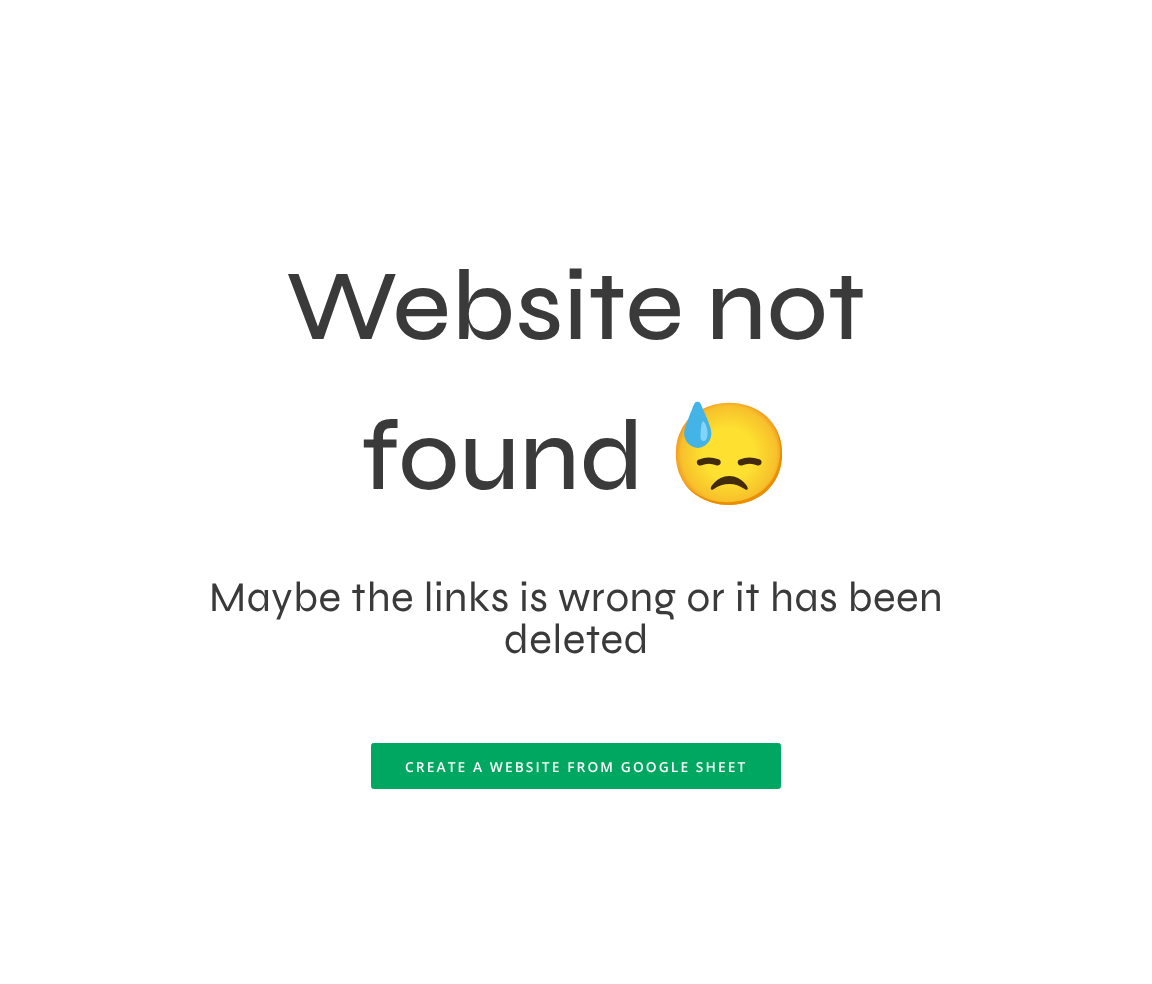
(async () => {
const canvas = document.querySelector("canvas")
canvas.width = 1152
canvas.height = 984
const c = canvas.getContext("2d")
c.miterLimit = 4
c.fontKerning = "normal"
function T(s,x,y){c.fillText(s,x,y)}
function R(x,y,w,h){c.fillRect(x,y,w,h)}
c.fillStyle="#fff"
R(0,0,1152,984)
c.letterSpacing="0.6px"
c.font="500 100px Syne"
c.fillStyle="#3a3a3a"
T("Website not",286,339)
T("found",361,489)
c.font="100px Noto Color Emoji"
T("😓",667,489)
c.font="42.2px Syne"
T("Maybe the links is wrong or it has been",209,611)
T("deleted",504,653)
c.fillStyle="#00a760"
c.beginPath()
c.roundRect(371.5,743.5,409,45,2)
c.fill()
c.strokeStyle="#00a760"
c.stroke()
c.letterSpacing="2.1px"
c.font="600 13.75px Open Sans"
c.fillStyle="#fff"
T("CREATE A WEBSITE FROM GOOGLE SHEET",405,772)
})()
